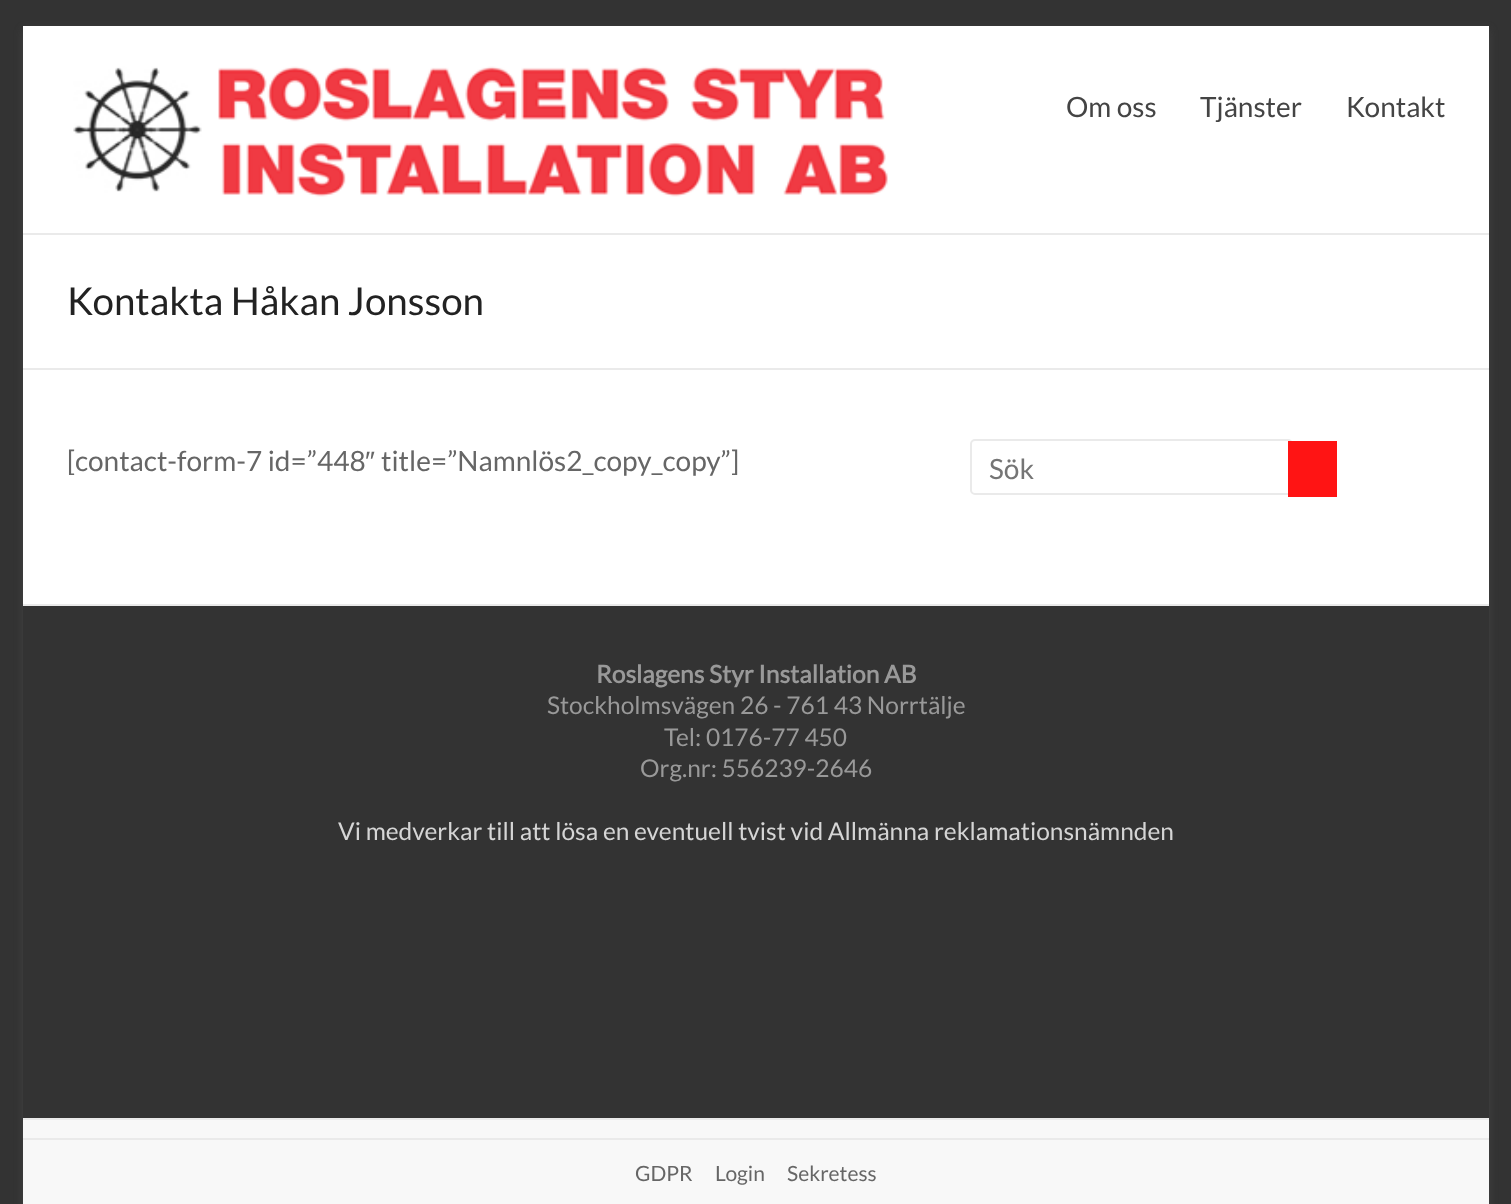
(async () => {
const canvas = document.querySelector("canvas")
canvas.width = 1511
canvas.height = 1204
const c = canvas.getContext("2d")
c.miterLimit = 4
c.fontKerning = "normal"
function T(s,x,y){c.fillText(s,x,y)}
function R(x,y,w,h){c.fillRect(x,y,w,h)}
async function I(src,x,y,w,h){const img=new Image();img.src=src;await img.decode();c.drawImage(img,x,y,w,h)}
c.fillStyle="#333"
R(0,0,1511,1204)
c.fillStyle="#6464644d"
c.filter="blur(5px)"
c.beginPath()
c.rect(23,30,1466,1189)
c.fill()
c.filter="none"
c.fillStyle="#fff"
R(23,26,1466,578)
c.fillStyle="#eaeaea"
R(23,233,1466,2)
await I("1.png",73,66,815,131)
c.font="28px Lato"
c.fillStyle="#444"
T("Om oss",1066,117)
T("Tjänster",1200,117)
T("Kontakt",1346,117)
c.fillStyle="#eaeaea"
R(23,368,1466,2)
c.font="38.5px Lato"
c.fillStyle="#222"
T("Kontakta Håkan Jonsson",67,315)
c.font="28px Lato"
c.fillStyle="#666"
T("[contact-form-7 id=”448",67,471)
c.font="28px Liberation Sans"
T("″",365,471)
c.font="28px Lato"
T("title=”Namnlös2_copy_copy”]",381,471)
c.beginPath()
c.roundRect(971,440,321,54,4)
c.strokeStyle="#eaeaea"
c.lineWidth=2
c.stroke()
c.fillStyle="#757575"
T("Sök",989,479)
c.fillStyle="#ff1414"
R(1288,441,49,56)
c.fillStyle="#333"
R(23,606,1466,512)
c.fillStyle="#eaeaea"
R(23,604,1466,2)
c.font="bold 24.5px Lato"
c.fillStyle="#999"
T("Roslagens Styr Installation AB",596,683)
c.font="24.5px Lato"
T("Stockholmsvägen 26 - 761 43 Norrtälje",547,714)
T("Tel: 0176-77 450",664,746)
T("Org.nr: 556239-2646",640,777)
c.fillStyle="#d5d5d5"
T("Vi medverkar till att lösa en eventuell tvist vid Allmänna reklamationsnämnden",338,840)
c.fillStyle="#f8f8f8"
R(23,1120,1466,84)
c.fillStyle="#eaeaea"
R(23,1118,1466,2)
R(23,1138,1466,2)
c.font="21px Lato"
c.fillStyle="#666"
T("GDPR",635,1181)
T("Login",715,1181)
T("Sekretess",787,1181)
})()
